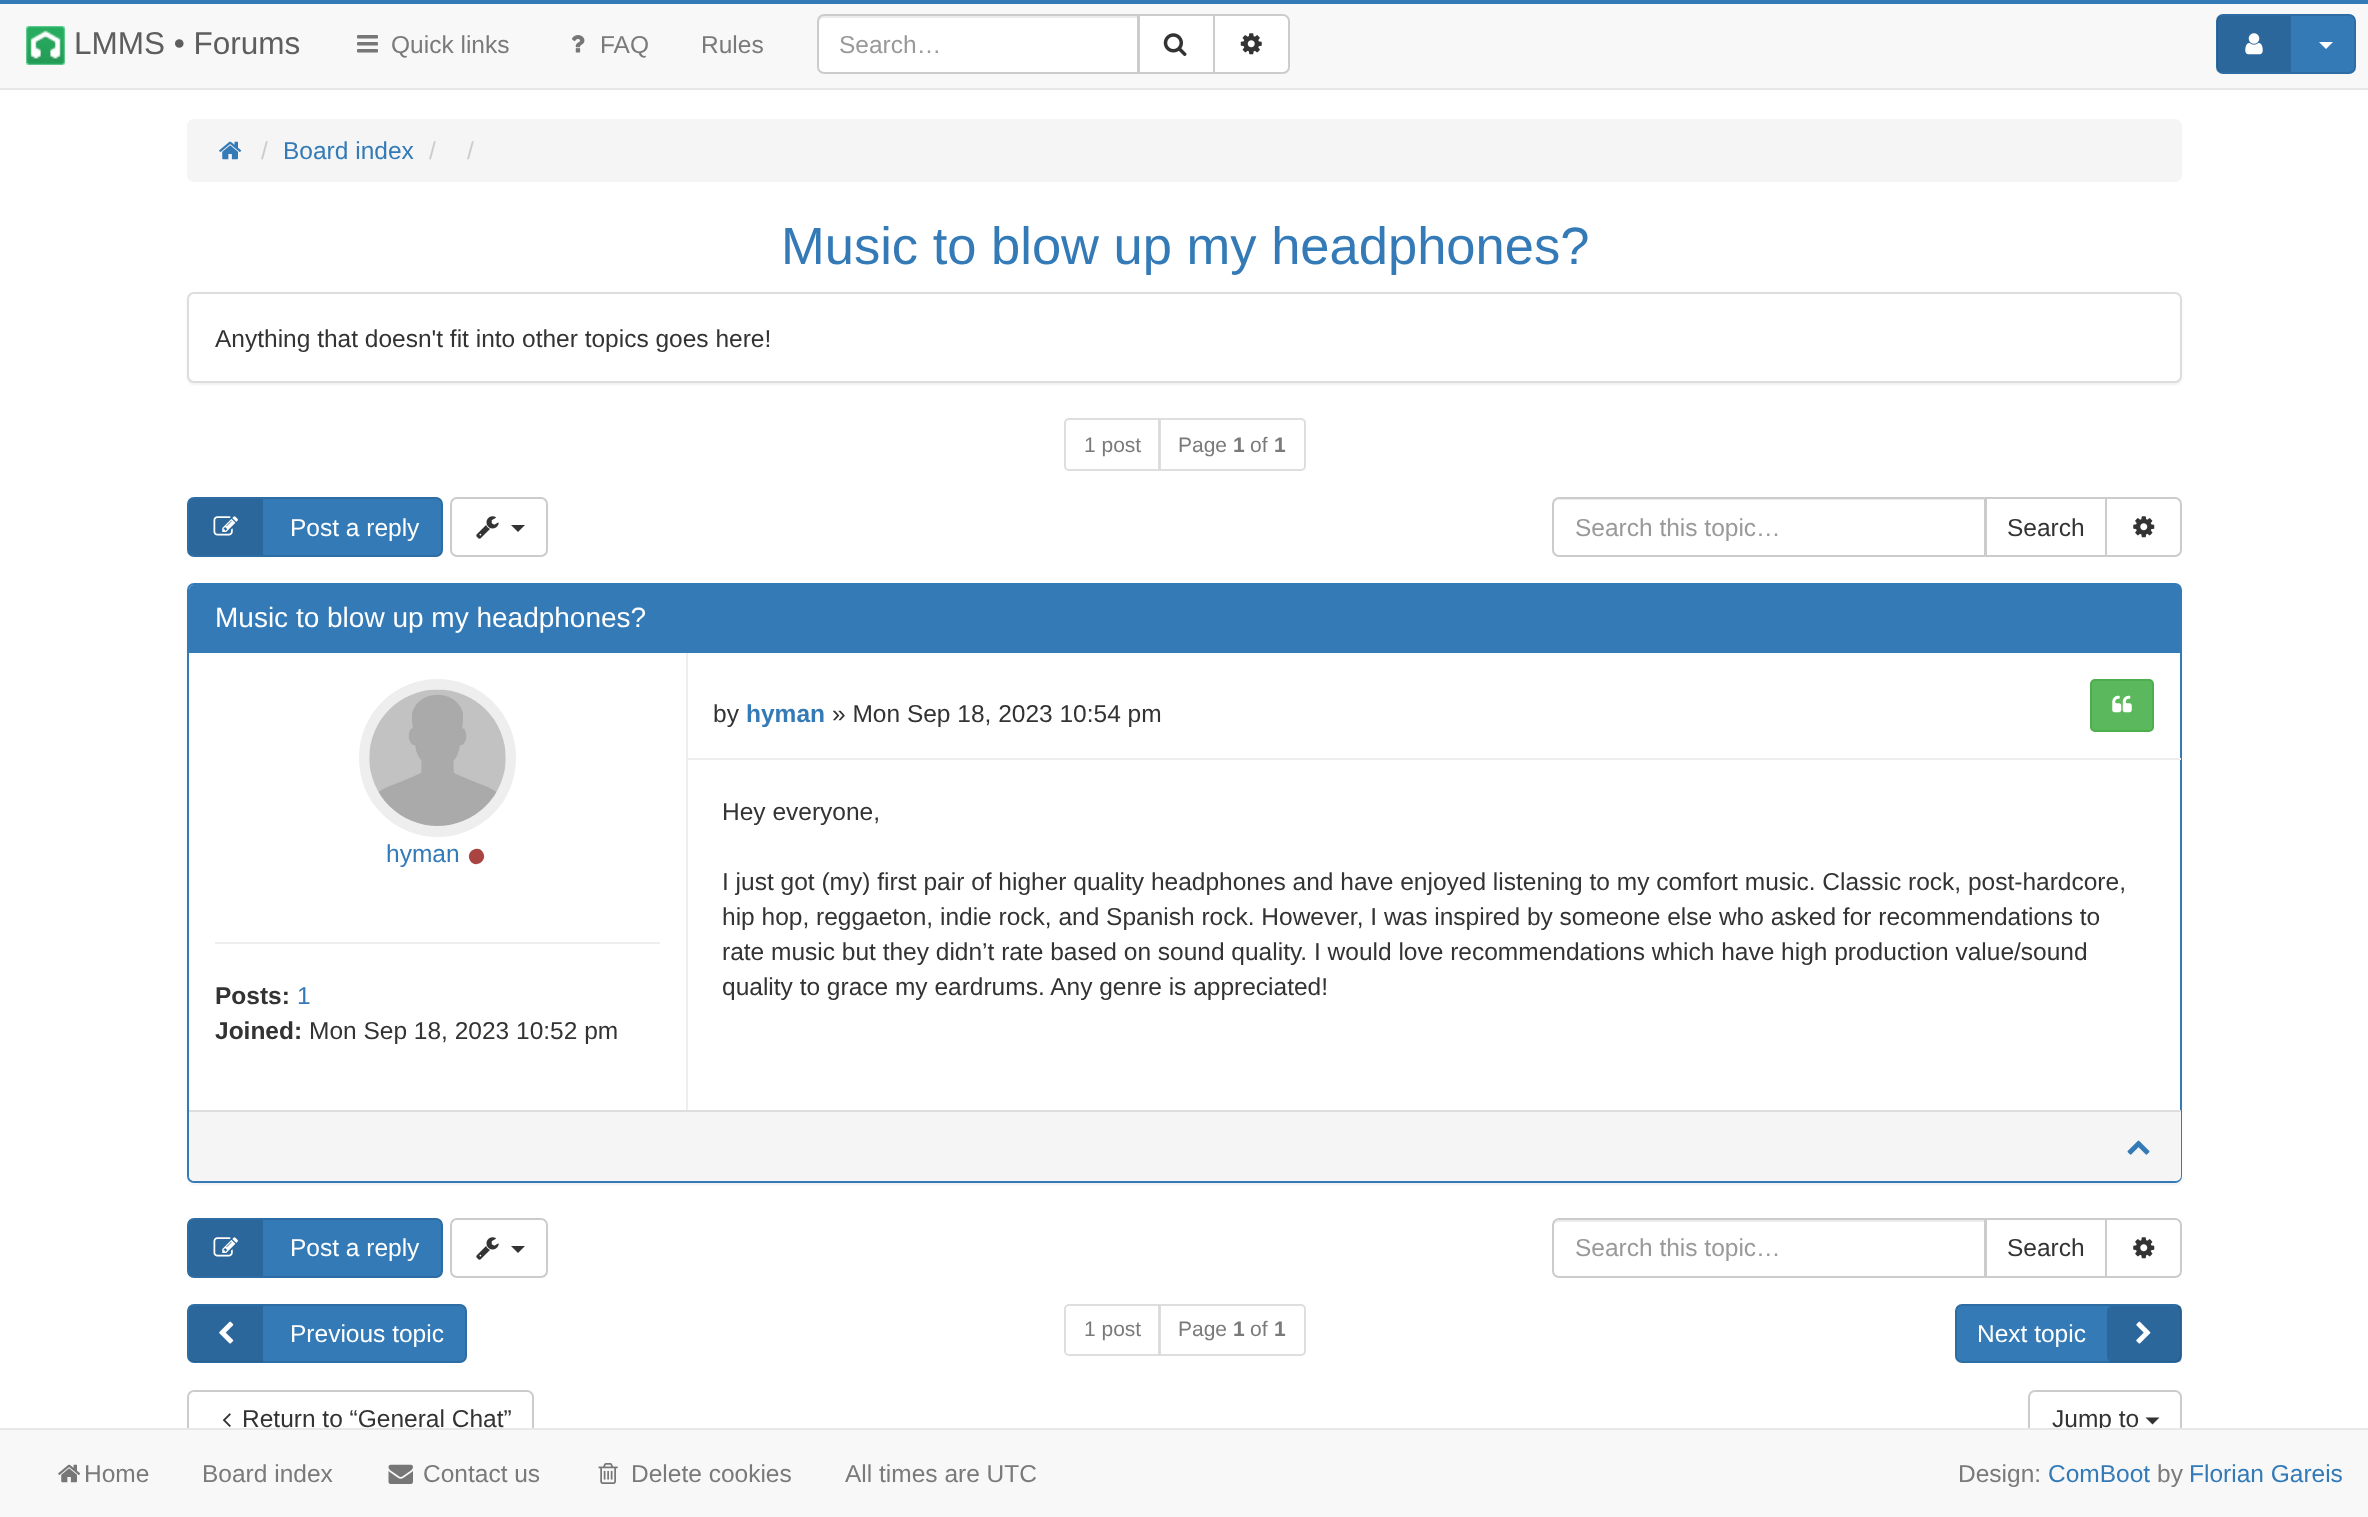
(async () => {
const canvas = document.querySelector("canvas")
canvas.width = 2368
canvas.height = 1517
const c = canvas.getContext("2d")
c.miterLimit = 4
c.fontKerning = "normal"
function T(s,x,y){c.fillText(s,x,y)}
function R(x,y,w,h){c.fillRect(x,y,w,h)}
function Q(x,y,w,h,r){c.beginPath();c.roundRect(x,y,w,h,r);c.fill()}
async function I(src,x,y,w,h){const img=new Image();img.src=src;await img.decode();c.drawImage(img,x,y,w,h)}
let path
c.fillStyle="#fff"
R(0,0,2368,1517)
c.fillStyle="#337ab7"
R(0,0,2368,4)
c.fillStyle="#f8f8f8"
R(0,4,2368,84)
c.fillStyle="#e7e7e7"
R(0,88,2368,2)
await I("1.png",26,26,39,39)
c.font="31.5px Liberation Sans"
c.fillStyle="#5e5e5e"
T("LMMS • Forums",74,54)
await I("2.png",357,35,21,18)
c.font="24.5px Liberation Sans"
c.fillStyle="#7a7a7a"
T("Quick links",391,53)
await I("3.png",571,35,14,18)
T("FAQ",600,53)
T("Rules",701,53)
c.fillStyle="#fff"
c.beginPath()
c.roundRect(817,14,322,60,[7,0,0,7])
c.fill()
c.fillStyle="#ececec"
path = new Path2D("M824 18h314v-2h-314c-3 0-5 2-5 5v2c0-3 2-5 5-5z")
c.fill(path)
c.beginPath()
c.roundRect(818,15,320,58,[6,0,0,6])
c.strokeStyle="#ccc"
c.lineWidth=2
c.stroke()
c.fillStyle="#999"
T("Search…",839,53)
c.fillStyle="#fff"
c.beginPath()
c.rect(1139,15,75,58)
c.fill()
c.stroke()
await I("4.png",1163,33,24,23)
c.beginPath()
c.roundRect(1214,15,75,58,[0,6,6,0])
c.fill()
c.stroke()
await I("5.png",1240,33,22,22)
c.fillStyle="#337ab7"
c.beginPath()
c.roundRect(2217,15,138,58,6)
c.fill()
c.strokeStyle="#2e6da4"
c.stroke()
c.fillStyle="#00000026"
c.beginPath()
c.roundRect(2217,16,74,56,[5,0,0,5])
c.fill()
await I("6.png",2245,33,18,22)
c.fillStyle="#fff"
path = new Path2D("M2319 42h14l-7 7z")
c.fill(path)
c.fillStyle="#f5f5f5"
Q(187,119,1995,63,7)
await I("7.png",219,141,23,19)
c.fillStyle="#ccc"
T("/",261,159)
c.fillStyle="#337ab7"
T("Board index",283,159)
c.fillStyle="#ccc"
T("/",429,159)
T("/",467,159)
c.font="52.5px Liberation Sans"
c.fillStyle="#337ab7"
T("Music to blow up my headphones?",781,264)
c.fillStyle="#0000000d"
c.filter="blur(1px)"
c.beginPath()
c.roundRect(187,294,1995,91,7)
c.fill()
c.filter="none"
c.fillStyle="#fff"
c.beginPath()
c.roundRect(188,293,1993,89,6)
c.fill()
c.strokeStyle="#ddd"
c.stroke()
c.font="24.5px Liberation Sans"
c.fillStyle="#333"
T("Anything that doesn't fit into other topics goes here!",215,347)
c.beginPath()
c.roundRect(1065,419,94,51,[4,0,0,4])
c.strokeStyle="#dedede"
c.stroke()
c.font="21px Liberation Sans"
c.fillStyle="#7a7a7a"
T("1 post",1084,452)
c.fillStyle="#ffffffa6"
c.beginPath()
c.roundRect(1159,418,147,53,[0,5,5,0])
c.fill()
c.beginPath()
c.roundRect(1160,419,145,51,[0,4,4,0])
c.strokeStyle="#cccccca6"
c.stroke()
c.fillStyle="#7a7a7a"
T("Page",1178,452)
c.font="bold 21px Liberation Sans"
T("1",1233,452)
c.font="21px Liberation Sans"
T("of",1250,452)
c.font="bold 21px Liberation Sans"
T("1",1274,452)
c.fillStyle="#337ab7"
c.beginPath()
c.roundRect(188,498,254,58,6)
c.fill()
c.strokeStyle="#2e6da4"
c.stroke()
c.fillStyle="#00000026"
c.beginPath()
c.roundRect(189,499,74,56,[5,0,0,5])
c.fill()
await I("8.png",213,516,25,20)
c.font="24.5px Liberation Sans"
c.fillStyle="#fff"
T("Post a reply",290,536)
c.beginPath()
c.roundRect(451,498,96,58,6)
c.strokeStyle="#ccc"
c.stroke()
await I("9.png",476,516,23,23)
c.fillStyle="#333"
path = new Path2D("M511 525h14l-7 7z")
c.fill(path)
c.fillStyle="#ececec"
path = new Path2D("M1559 500h425v55h1v-56h-426c-4 0-5 4-5 7c0-3 2-6 5-6z")
c.fill(path)
c.beginPath()
c.roundRect(1553,498,432,58,[6,0,0,6])
c.stroke()
c.fillStyle="#999"
T("Search this topic…",1575,536)
c.strokeRect(1986,498,120,58)
c.fillStyle="#333"
T("Search",2007,536)
c.fillStyle="#fff"
c.beginPath()
c.roundRect(2106,498,75,58,[0,6,6,0])
c.fill()
c.stroke()
await I("10.png",2133,516,22,22)
c.fillStyle="#0000000d"
c.filter="blur(1px)"
c.beginPath()
c.roundRect(187,585,1995,600,7)
c.fill()
c.filter="none"
c.fillStyle="#fff"
c.beginPath()
c.roundRect(188,584,1993,598,6)
c.fill()
c.strokeStyle="#337ab7"
c.stroke()
c.fillStyle="#337ab7"
c.beginPath()
c.roundRect(189,585,1992,68,[5,5,0,0])
c.fill()
c.font="28px Liberation Sans"
c.fillStyle="#fff"
T("Music to blow up my headphones?",215,627)
c.fillStyle="#eee"
R(686,653,2,457)
c.beginPath()
c.roundRect(364.5,684.5,146,147,73)
c.strokeStyle="#eee"
c.lineWidth=11
c.stroke()
await I("11.png",369,689,137,137)
c.font="24.5px Liberation Sans"
c.fillStyle="#337ab7"
T("hyman",386,862)
c.fillStyle="#a94442"
path = new Path2D("M483 852.5c5 8.5-8 16.5-13 8c-5-8.5 8-16.5 13-8z")
c.fill(path)
c.fillStyle="#eee"
R(215,942,445,2)
c.font="bold 24.5px Liberation Sans"
c.fillStyle="#333"
T("Posts:",215,1004)
c.font="24.5px Liberation Sans"
c.fillStyle="#337ab7"
T("1",297,1004)
c.font="bold 24.5px Liberation Sans"
c.fillStyle="#333"
T("Joined:",215,1039)
c.font="24.5px Liberation Sans"
T("Mon Sep 18, 2023 10:52 pm",309,1039)
c.fillStyle="#eee"
R(688,758,1493,2)
c.fillStyle="#333"
T("by",713,722)
c.font="bold 24.5px Liberation Sans"
c.fillStyle="#337ab7"
T("hyman",746,722)
c.font="24.5px Liberation Sans"
c.fillStyle="#333"
T("» Mon Sep 18, 2023 10:54 pm",832,722)
c.fillStyle="#5cb85c"
c.beginPath()
c.roundRect(2091,680,62,51,4)
c.fill()
c.strokeStyle="#4cae4c"
c.lineWidth=2
c.stroke()
await I("12.png",2112,695,20,18)
c.fillStyle="#333"
T("Hey everyone,",722,820)
T("I just got (my) first pair of higher quality headphones and have enjoyed listening to my comfort music. Classic rock, post-hardcore,",722,890)
T("hip hop, reggaeton, indie rock, and Spanish rock. However, I was inspired by someone else who asked for recommendations to",722,925)
T("rate music but they didn’t rate based on sound quality. I would love recommendations which have high production value/sound",722,960)
T("quality to grace my eardrums. Any genre is appreciated!",722,995)
c.fillStyle="#f5f5f5"
c.beginPath()
c.roundRect(189,1110,1992,71,[0,0,5,5])
c.fill()
c.fillStyle="#ddd"
R(189,1110,1992,2)
await I("13.png",2127,1140,23,15)
c.fillStyle="#337ab7"
c.beginPath()
c.roundRect(188,1219,254,58,6)
c.fill()
c.strokeStyle="#2e6da4"
c.stroke()
c.fillStyle="#00000026"
c.beginPath()
c.roundRect(189,1220,74,56,[5,0,0,5])
c.fill()
await I("8.png",213,1237,25,20)
c.fillStyle="#fff"
T("Post a reply",290,1256)
c.beginPath()
c.roundRect(451,1219,96,58,6)
c.strokeStyle="#ccc"
c.stroke()
await I("9.png",476,1237,23,23)
c.fillStyle="#333"
path = new Path2D("M511 1246h14l-7 7z")
c.fill(path)
c.fillStyle="#ececec"
path = new Path2D("M1559 1222h425v54h1v-56h-426c-4 0-5 4-5 7c0-3 2-5 5-5z")
c.fill(path)
c.beginPath()
c.roundRect(1553,1219,432,58,[6,0,0,6])
c.stroke()
c.fillStyle="#999"
T("Search this topic…",1575,1256)
c.strokeRect(1986,1219,120,58)
c.fillStyle="#333"
T("Search",2007,1256)
c.fillStyle="#fff"
c.beginPath()
c.roundRect(2106,1219,75,58,[0,6,6,0])
c.fill()
c.stroke()
await I("10.png",2133,1237,22,22)
c.fillStyle="#337ab7"
c.beginPath()
c.roundRect(188,1305,278,57,6)
c.fill()
c.strokeStyle="#2e6da4"
c.stroke()
c.fillStyle="#00000026"
c.beginPath()
c.roundRect(189,1306,74,56,[5,0,0,5])
c.fill()
await I("14.png",219,1321,15,23)
c.fillStyle="#fff"
T("Previous topic",290,1342)
c.beginPath()
c.roundRect(1065,1305,94,50,[4,0,0,4])
c.strokeStyle="#dedede"
c.stroke()
c.font="21px Liberation Sans"
c.fillStyle="#7a7a7a"
T("1 post",1084,1336)
c.fillStyle="#ffffffa6"
c.beginPath()
c.roundRect(1159,1304,147,52,[0,5,5,0])
c.fill()
c.beginPath()
c.roundRect(1160,1305,145,50,[0,4,4,0])
c.strokeStyle="#cccccca6"
c.stroke()
c.fillStyle="#7a7a7a"
T("Page",1178,1336)
c.font="bold 21px Liberation Sans"
T("1",1233,1336)
c.font="21px Liberation Sans"
T("of",1250,1336)
c.font="bold 21px Liberation Sans"
T("1",1274,1336)
c.fillStyle="#337ab7"
c.beginPath()
c.roundRect(1956,1305,225,57,6)
c.fill()
c.strokeStyle="#2e6da4"
c.stroke()
c.font="24.5px Liberation Sans"
c.fillStyle="#fff"
T("Next topic",1977,1342)
c.fillStyle="#00000026"
c.beginPath()
c.roundRect(2107,1306,74,56,[5,0,0,5])
c.fill()
await I("15.png",2136,1321,15,23)
c.beginPath()
c.roundRect(188,1391,345,57,6)
c.strokeStyle="#ccc"
c.stroke()
await I("16.png",222,1413,9,14)
c.fillStyle="#333"
T("Return to “General Chat”",242,1427)
c.beginPath()
c.roundRect(2029,1391,152,57,6)
c.stroke()
T("Jump to",2052,1427)
path = new Path2D("M2145.5 1417.5h14l-7 7z")
c.fill(path)
c.fillStyle="#f8f8f8"
R(0,1430,2368,87)
c.fillStyle="#e7e7e7"
R(0,1428,2368,2)
await I("17.png",58,1464,23,19)
c.fillStyle="#7a7a7a"
T("Home",84,1482)
T("Board index",202,1482)
await I("18.png",388,1464,25,20)
T("Contact us",423,1482)
await I("19.png",598,1463,20,21)
T("Delete cookies",631,1482)
T("All times are UTC",845,1482)
T("Design:",1958,1482)
c.fillStyle="#337ab7"
T("ComBoot",2048,1482)
c.fillStyle="#7a7a7a"
T("by",2157,1482)
c.fillStyle="#337ab7"
T("Florian Gareis",2189,1482)
})()
